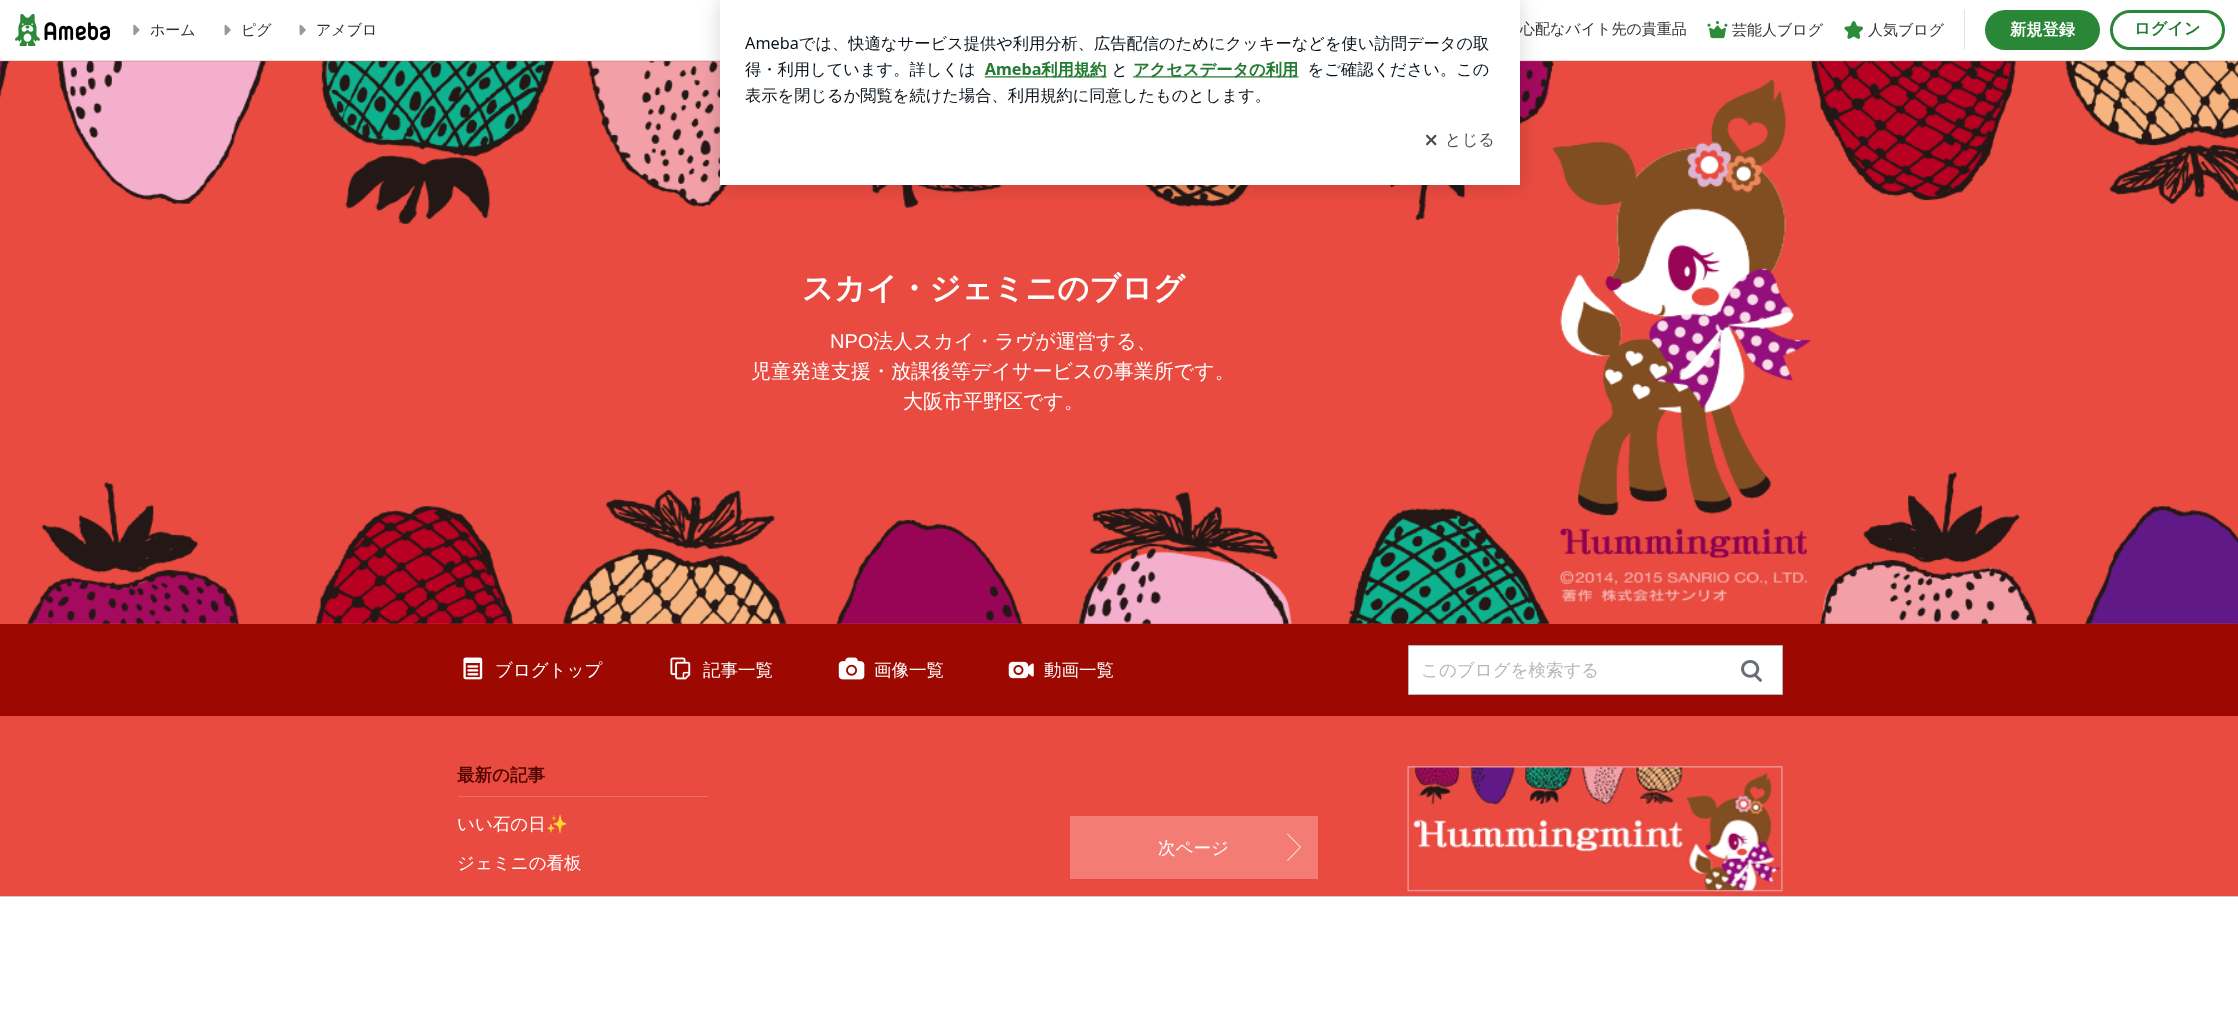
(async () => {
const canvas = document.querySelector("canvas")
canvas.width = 2238
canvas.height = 1009
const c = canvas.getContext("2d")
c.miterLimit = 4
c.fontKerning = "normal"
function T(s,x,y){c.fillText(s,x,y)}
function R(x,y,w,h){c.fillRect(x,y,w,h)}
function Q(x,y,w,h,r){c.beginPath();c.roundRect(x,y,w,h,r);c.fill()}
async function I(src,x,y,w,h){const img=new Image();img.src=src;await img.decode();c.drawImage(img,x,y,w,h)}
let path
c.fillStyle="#e94b40"
R(0,0,2238,1009)
c.fillStyle="#fff"
R(0,0,2238,60)
c.fillStyle="#e2e2e2"
R(0,60,2238,1)
await I("7.png",0,61,2238,563)
c.save()
path = new Path2D("M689 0h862v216h-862zm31 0h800v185h-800z")
c.clip(path,"evenodd")
c.fillStyle="#00000029"
c.filter="blur(10px)"
c.beginPath()
c.rect(720,0,800,185)
c.fill()
c.filter="none"
c.restore()
c.font="500 15px WenQuanYi Zen Hei"
c.fillStyle="#333"
T("心配なバイト先の貴重品",1520,34)
await I("1.png",720,21,800,164)
await I("2.png",15,14,95,32)
await I("3.png",133,24,7,12)
T("ホーム",150,35)
await I("4.png",224,24,7,12)
T("ピグ",241,35)
await I("4.png",299,24,7,12)
T("アメブロ",316,35)
await I("5.png",1707,21,21,18)
T("芸能人ブログ",1732,35)
await I("6.png",1844,21,19,18)
T("人気ブログ",1868,35)
c.fillStyle="#e2e2e2"
R(1964,10,1,40)
c.fillStyle="#298737"
Q(1985,10,115,40,20)
c.font="bold 16.25px WenQuanYi Zen Hei"
c.fillStyle="#fff"
T("新規登録",2010,35)
c.beginPath()
c.roundRect(2111.5,11.5,112,37,18.5)
c.strokeStyle="#298737"
c.lineWidth=3
c.stroke()
c.fillStyle="#237b31"
T("ログイン",2134,34)
c.font="bold 31.25px WenQuanYi Zen Hei"
c.fillStyle="#fff"
T("スカイ・ジェミニのブログ",802,299)
c.font="20px Liberation Sans"
T("NPO",830,348)
c.font="500 20px WenQuanYi Zen Hei"
T("法人スカイ・ラヴが運営する、",873,348)
T("児童発達支援・放課後等デイサービスの事業所です。",751,378)
T("大阪市平野区です。",903,408)
c.fillStyle="#9d0900"
R(0,624,2238,92)
await I("8.png",463,657,20,23)
c.font="500 17.5px WenQuanYi Zen Hei"
c.fillStyle="#fff"
T("ブログトップ",495,676)
await I("9.png",670,657,21,23)
T("記事一覧",703,676)
await I("10.png",838,657,27,23)
T("画像一覧",874,676)
await I("11.png",1008,661,26,18)
T("動画一覧",1044,676)
c.beginPath()
c.rect(1408.5,645.5,374,49)
c.fill()
c.strokeStyle="#b5b8ba"
c.lineWidth=1
c.stroke()
c.fillStyle="#b5b8ba"
T("このブログを検索する",1421,676)
await I("12.png",1741,660,21,22)
c.fillStyle="#ec6e66"
R(458,796,250,1)
c.font="bold 17.5px WenQuanYi Zen Hei"
c.fillStyle="#510500"
T("最新の記事",457,781)
c.font="500 17.5px WenQuanYi Zen Hei"
c.fillStyle="#fff"
T("いい石の日",457,830)
c.font="17.5px Noto Color Emoji"
T("✨",546,830)
c.font="500 17.5px WenQuanYi Zen Hei"
T("ジェミニの看板",457,869)
c.fillStyle="#f37d75"
R(1070,816,248,63)
c.fillStyle="#fff"
T("次ページ",1158,854)
path = new Path2D("M1300 847l-13-13l.5-.5l13.5 13.5l-13.5 14l-.5-.5z")
c.fill(path)
await I("13.png",1407,766,376,126)
R(0,897,2238,112)
c.fillStyle="#ccc"
R(0,896,2238,1)
})()
